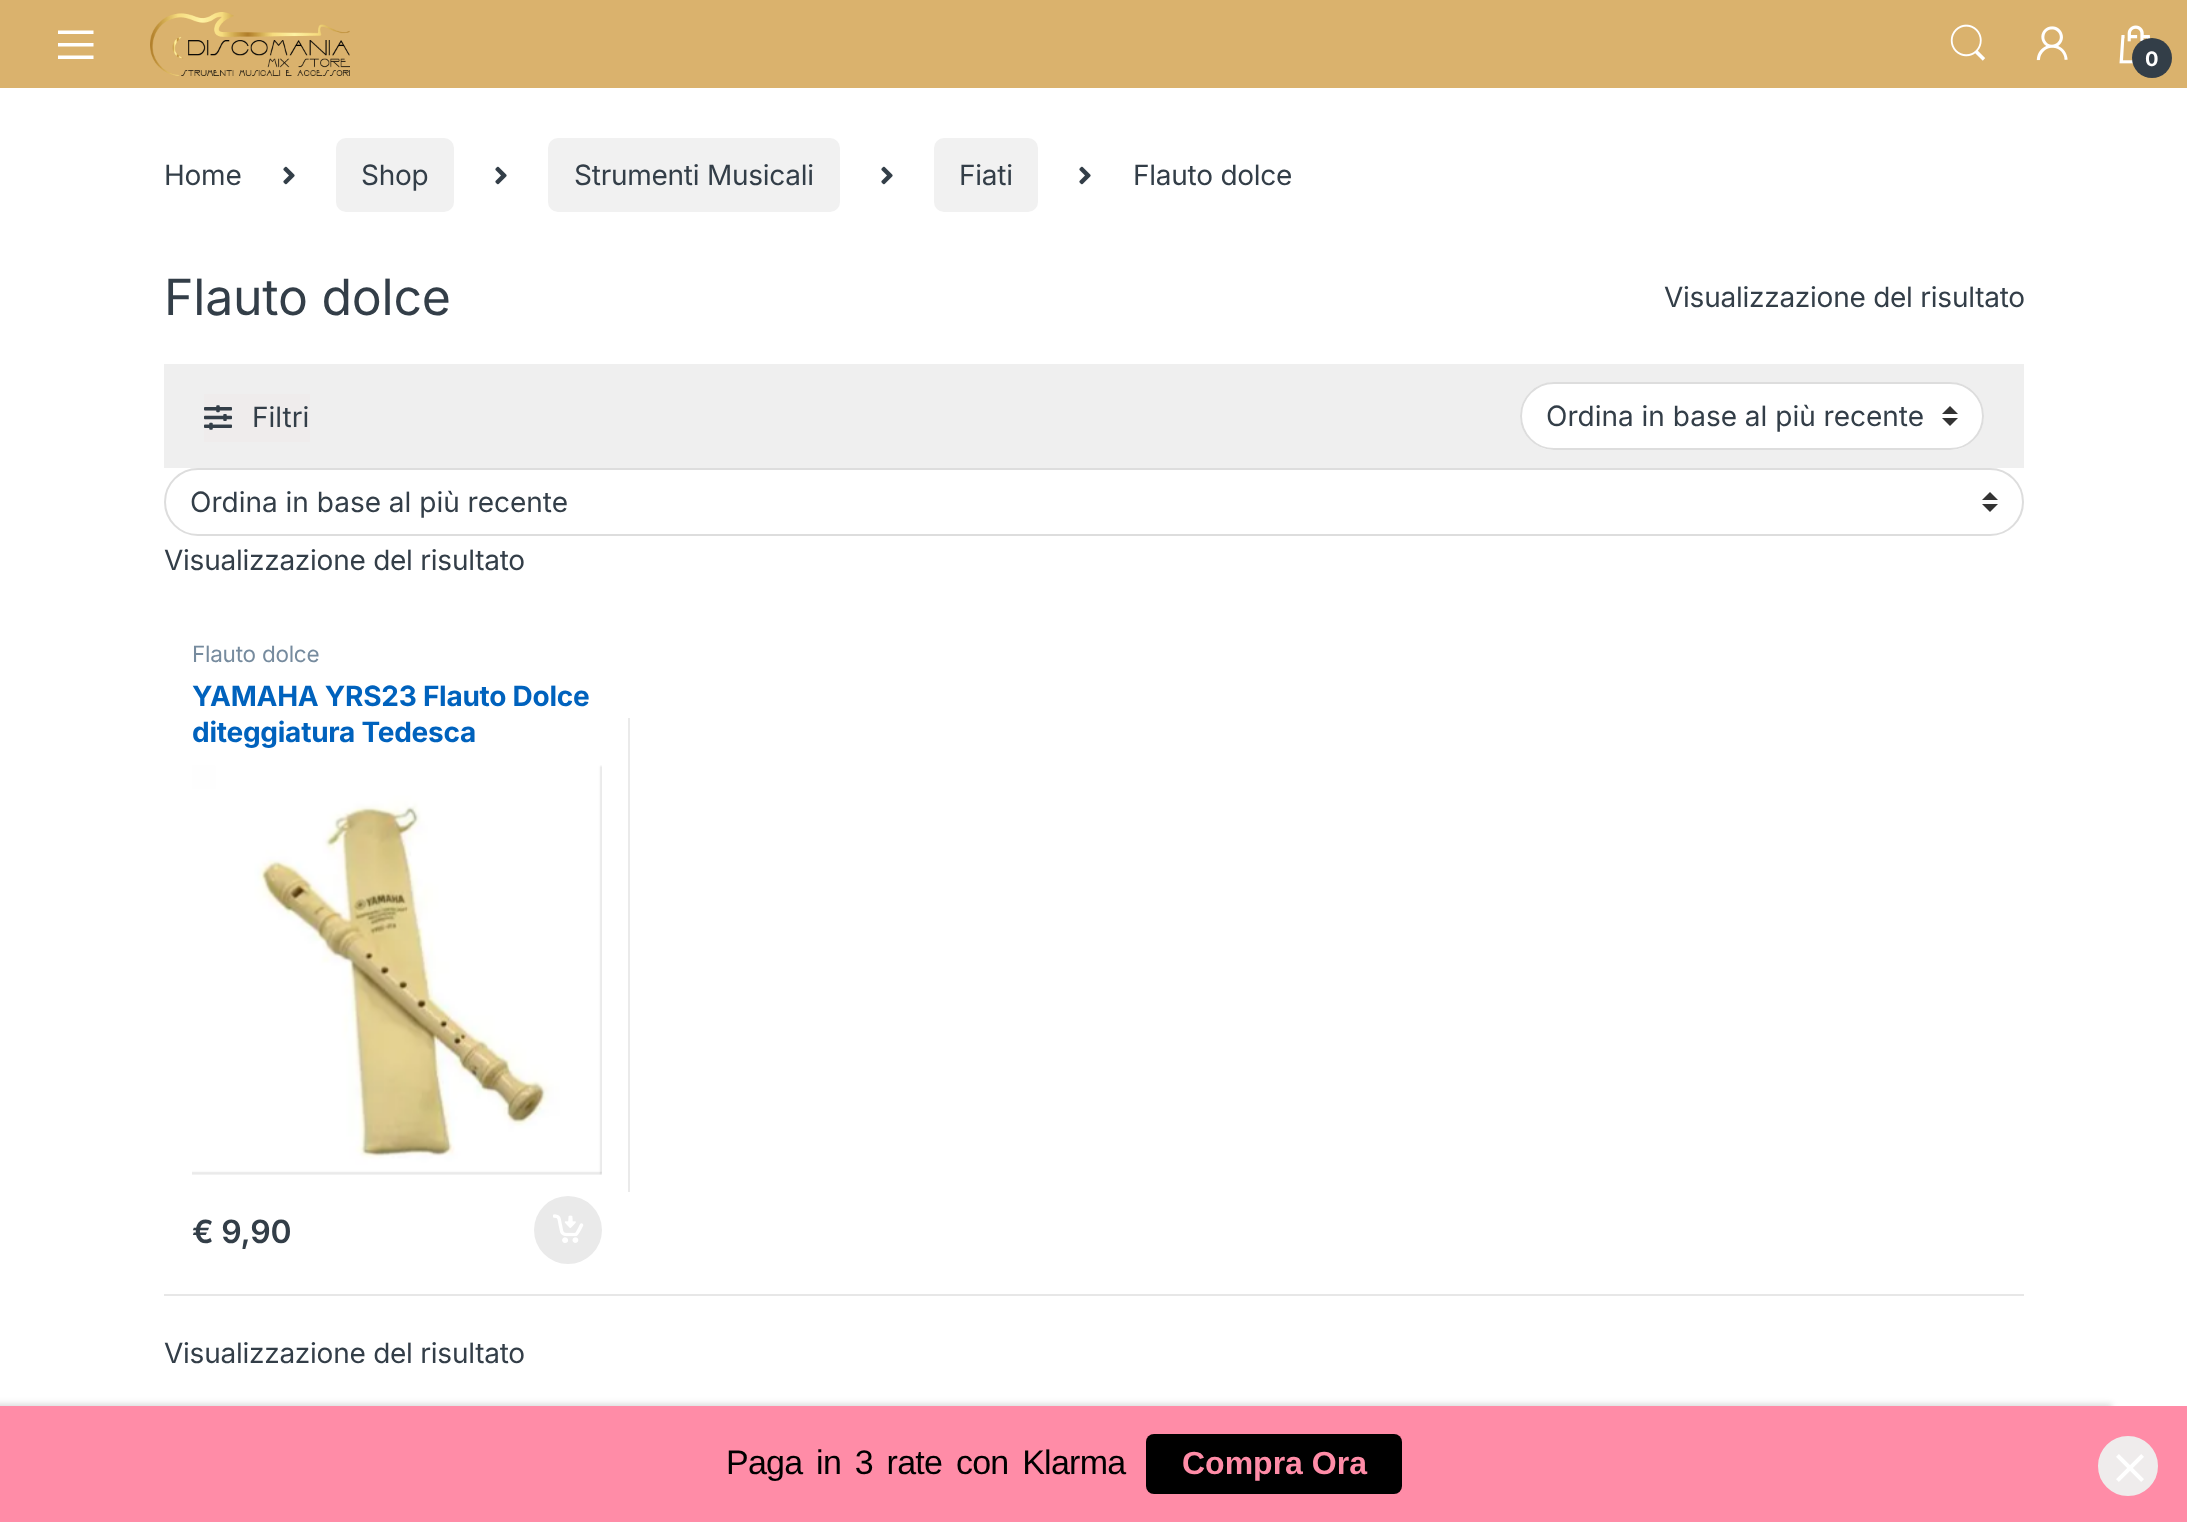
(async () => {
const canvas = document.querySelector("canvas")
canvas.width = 2187
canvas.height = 1522
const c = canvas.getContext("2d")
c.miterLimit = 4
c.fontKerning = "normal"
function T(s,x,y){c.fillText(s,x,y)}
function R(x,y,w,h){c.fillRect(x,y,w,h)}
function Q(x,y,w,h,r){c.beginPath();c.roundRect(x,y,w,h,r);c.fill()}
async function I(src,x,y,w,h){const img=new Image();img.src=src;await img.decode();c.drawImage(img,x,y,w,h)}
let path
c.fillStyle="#fff"
R(0,0,2187,1522)
c.fillStyle="#dab26d"
R(0,0,2187,88)
c.fillStyle="#fff"
path = new Path2D("M58 59v-3.5h35.5v3.5zm0-16h35.5v3.5h-35.5zm0-12.5h35.5v3.5h-35.5z")
c.fill(path)
await I("1.png",150,12,200,64)
await I("2.png",1950,24,36,37)
await I("3.png",2036,26,32,35)
await I("4.png",2119,25,32,39)
c.fillStyle="#333e48"
c.beginPath()
c.arc(2152,58,20,0,7)
c.fill()
c.letterSpacing="-0.25px"
c.font="bold 20px Inter"
c.fillStyle="#fff"
T("0",2145,66)
c.font="28px Inter"
c.fillStyle="#333e48"
T("Home",164,185)
await I("5.png",283,166,12,19)
c.fillStyle="#f1f1f1"
Q(336,138,118,74,10)
c.fillStyle="#333e48"
T("Shop",361,185)
await I("5.png",495,166,12,19)
c.fillStyle="#f1f1f1"
Q(548,138,292,74,10)
c.fillStyle="#333e48"
T("Strumenti Musicali",574,185)
await I("5.png",881,166,12,19)
c.fillStyle="#f1f1f1"
Q(934,138,104,74,10)
c.fillStyle="#333e48"
T("Fiati",959,185)
await I("5.png",1079,166,12,19)
T("Flauto dolce",1133,185)
c.font="50px Inter"
T("Flauto dolce",164,315)
c.font="28px Inter"
T("Visualizzazione del risultato",1664,307)
c.fillStyle="#efefef"
R(164,364,1860,104)
c.fillStyle="#efecec"
R(204,394,106,48)
await I("6.png",204,405,28,25)
c.letterSpacing="0px"
c.fillStyle="#333e48"
T("Filtri",252,427)
c.fillStyle="#fff"
Q(1520,382,464,68,34)
await I("7.png",1942,406,16,20)
c.beginPath()
c.roundRect(1521,383,462,66,33)
c.strokeStyle="#ddd"
c.lineWidth=2
c.stroke()
c.fillStyle="#333e48"
T("Ordina in base al più recente",1546,426)
await I("7.png",1982,492,16,20)
c.beginPath()
c.roundRect(165,469,1858,66,33)
c.stroke()
T("Ordina in base al più recente",190,512)
c.letterSpacing="-0.25px"
T("Visualizzazione del risultato",164,570)
c.font="22.5px Inter"
c.fillStyle="#768b9e"
T("Flauto dolce",192,662)
c.font="bold 28px Inter"
c.fillStyle="#0062bd"
T("YAMAHA YRS23 Flauto Dolce",192,706)
T("diteggiatura Tedesca",192,742)
await I("8.png",192,765,410,410)
c.font="600 32px Inter"
c.fillStyle="#333e48"
T("€ 9,90",192,1243)
c.fillStyle="#eaeaea"
c.beginPath()
c.arc(568,1230,34,0,7)
c.fill()
await I("9.png",553,1214,31,29)
R(628,718,2,474)
c.fillStyle="#e7e7e7"
R(164,1294,1860,2)
c.font="28px Inter"
c.fillStyle="#333e48"
T("Visualizzazione del risultato",164,1363)
c.fillStyle="#00000026"
c.filter="blur(3px)"
c.beginPath()
c.rect(-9,1404,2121,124)
c.fill()
c.filter="none"
c.fillStyle="#ff8ca7"
R(0,1406,2187,116)
c.letterSpacing="-0.75px"
c.wordSpacing="5px"
c.font="34px Liberation Sans"
c.fillStyle="#000"
T("Paga in 3 rate con Klarma",726,1474)
Q(1146,1434,256,60,8)
c.letterSpacing="0px"
c.wordSpacing="0px"
c.font="bold 32px Liberation Sans"
c.fillStyle="#ff8ca7"
T("Compra Ora",1182,1474)
c.fillStyle="#efecec"
c.beginPath()
c.arc(2128,1466,29,0,7)
c.fill()
c.strokeStyle="#efecec"
c.stroke()
await I("10.png",2116,1454,28,28)
})()
